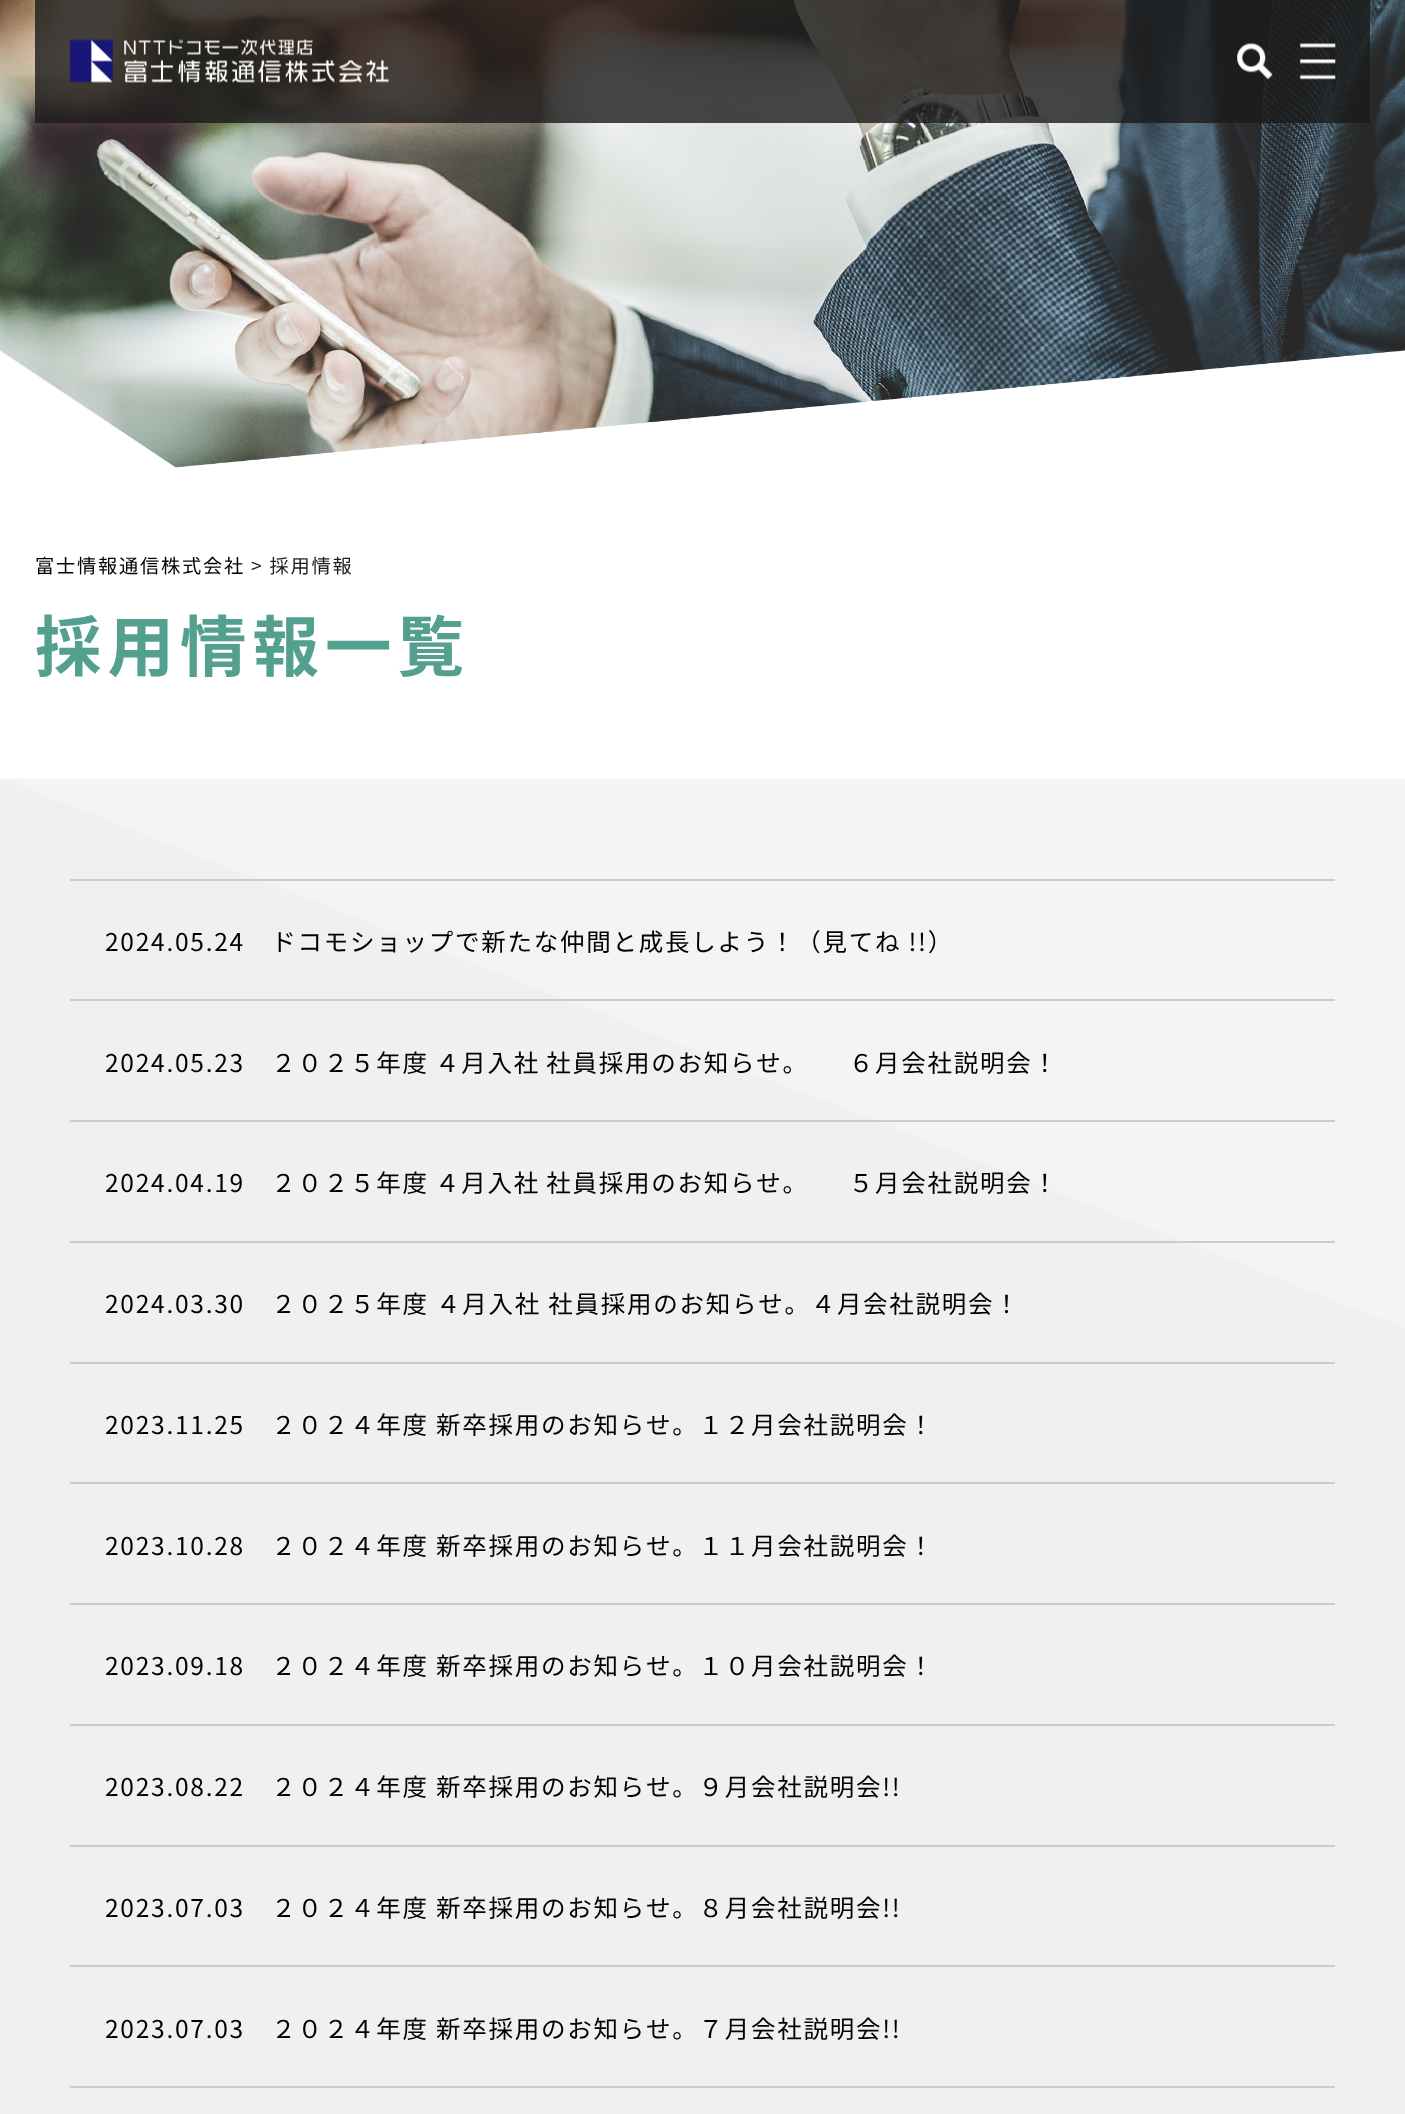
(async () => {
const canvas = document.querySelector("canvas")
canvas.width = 1405
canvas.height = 2114
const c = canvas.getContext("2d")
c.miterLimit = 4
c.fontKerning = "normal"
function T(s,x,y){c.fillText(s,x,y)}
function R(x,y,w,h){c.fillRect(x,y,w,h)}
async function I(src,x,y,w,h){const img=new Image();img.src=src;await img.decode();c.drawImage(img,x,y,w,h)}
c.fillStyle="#fff"
R(0,0,1405,2114)
await I("1.png",0,0,1405,468)
c.fillStyle="#1a1a1acc"
R(35,0,1335,123)
await I("2.png",70,39,319,45)
await I("3.png",1237,43,36,37)
await I("4.png",1300,43,36,37)
c.letterSpacing="1.75px"
c.font="19.25px Noto Sans JP"
c.fillStyle="#000"
T("富士情報通信株式会社",35,573)
c.fillStyle="#1a1a1a"
T("> 採用情報",251,573)
c.letterSpacing="6px"
c.font="bold 66.5px Noto Sans JP"
c.fillStyle="#54a08f"
T("採用情報一覧",35,671)
await I("5.png",0,778,1405,1336)
c.fillStyle="#ccc"
R(70,879,1265,2)
c.letterSpacing="1.75px"
c.font="24.5px Noto Sans JP"
c.fillStyle="#000"
T("2024.05.24　ドコモショップで新たな仲間と成長しよう！（見てね !!）",105,951)
c.fillStyle="#ccc"
R(70,999,1265,2)
c.wordSpacing="-1px"
c.fillStyle="#000"
T("2024.05.23　２０２５年度 ４月入社 社員採用のお知らせ。　　６月会社説明会！",105,1072)
c.fillStyle="#ccc"
R(70,1120,1265,2)
c.fillStyle="#000"
T("2024.04.19　２０２５年度 ４月入社 社員採用のお知らせ。　　５月会社説明会！",105,1192)
c.fillStyle="#ccc"
R(70,1241,1265,2)
c.wordSpacing="0px"
c.fillStyle="#000"
T("2024.03.30　２０２５年度 ４月入社 社員採用のお知らせ。４月会社説明会！",105,1313)
c.fillStyle="#ccc"
R(70,1362,1265,2)
c.fillStyle="#000"
T("2023.11.25　２０２４年度 新卒採用のお知らせ。１２月会社説明会！",105,1434)
c.fillStyle="#ccc"
R(70,1482,1265,2)
c.fillStyle="#000"
T("2023.10.28　２０２４年度 新卒採用のお知らせ。１１月会社説明会！",105,1555)
c.fillStyle="#ccc"
R(70,1603,1265,2)
c.fillStyle="#000"
T("2023.09.18　２０２４年度 新卒採用のお知らせ。１０月会社説明会！",105,1675)
c.fillStyle="#ccc"
R(70,1724,1265,2)
c.fillStyle="#000"
T("2023.08.22　２０２４年度 新卒採用のお知らせ。９月会社説明会!!",105,1796)
c.fillStyle="#ccc"
R(70,1845,1265,2)
c.fillStyle="#000"
T("2023.07.03　２０２４年度 新卒採用のお知らせ。８月会社説明会!!",105,1917)
c.fillStyle="#ccc"
R(70,1965,1265,2)
c.fillStyle="#000"
T("2023.07.03　２０２４年度 新卒採用のお知らせ。７月会社説明会!!",105,2038)
c.fillStyle="#ccc"
R(70,2086,1265,2)
})()
